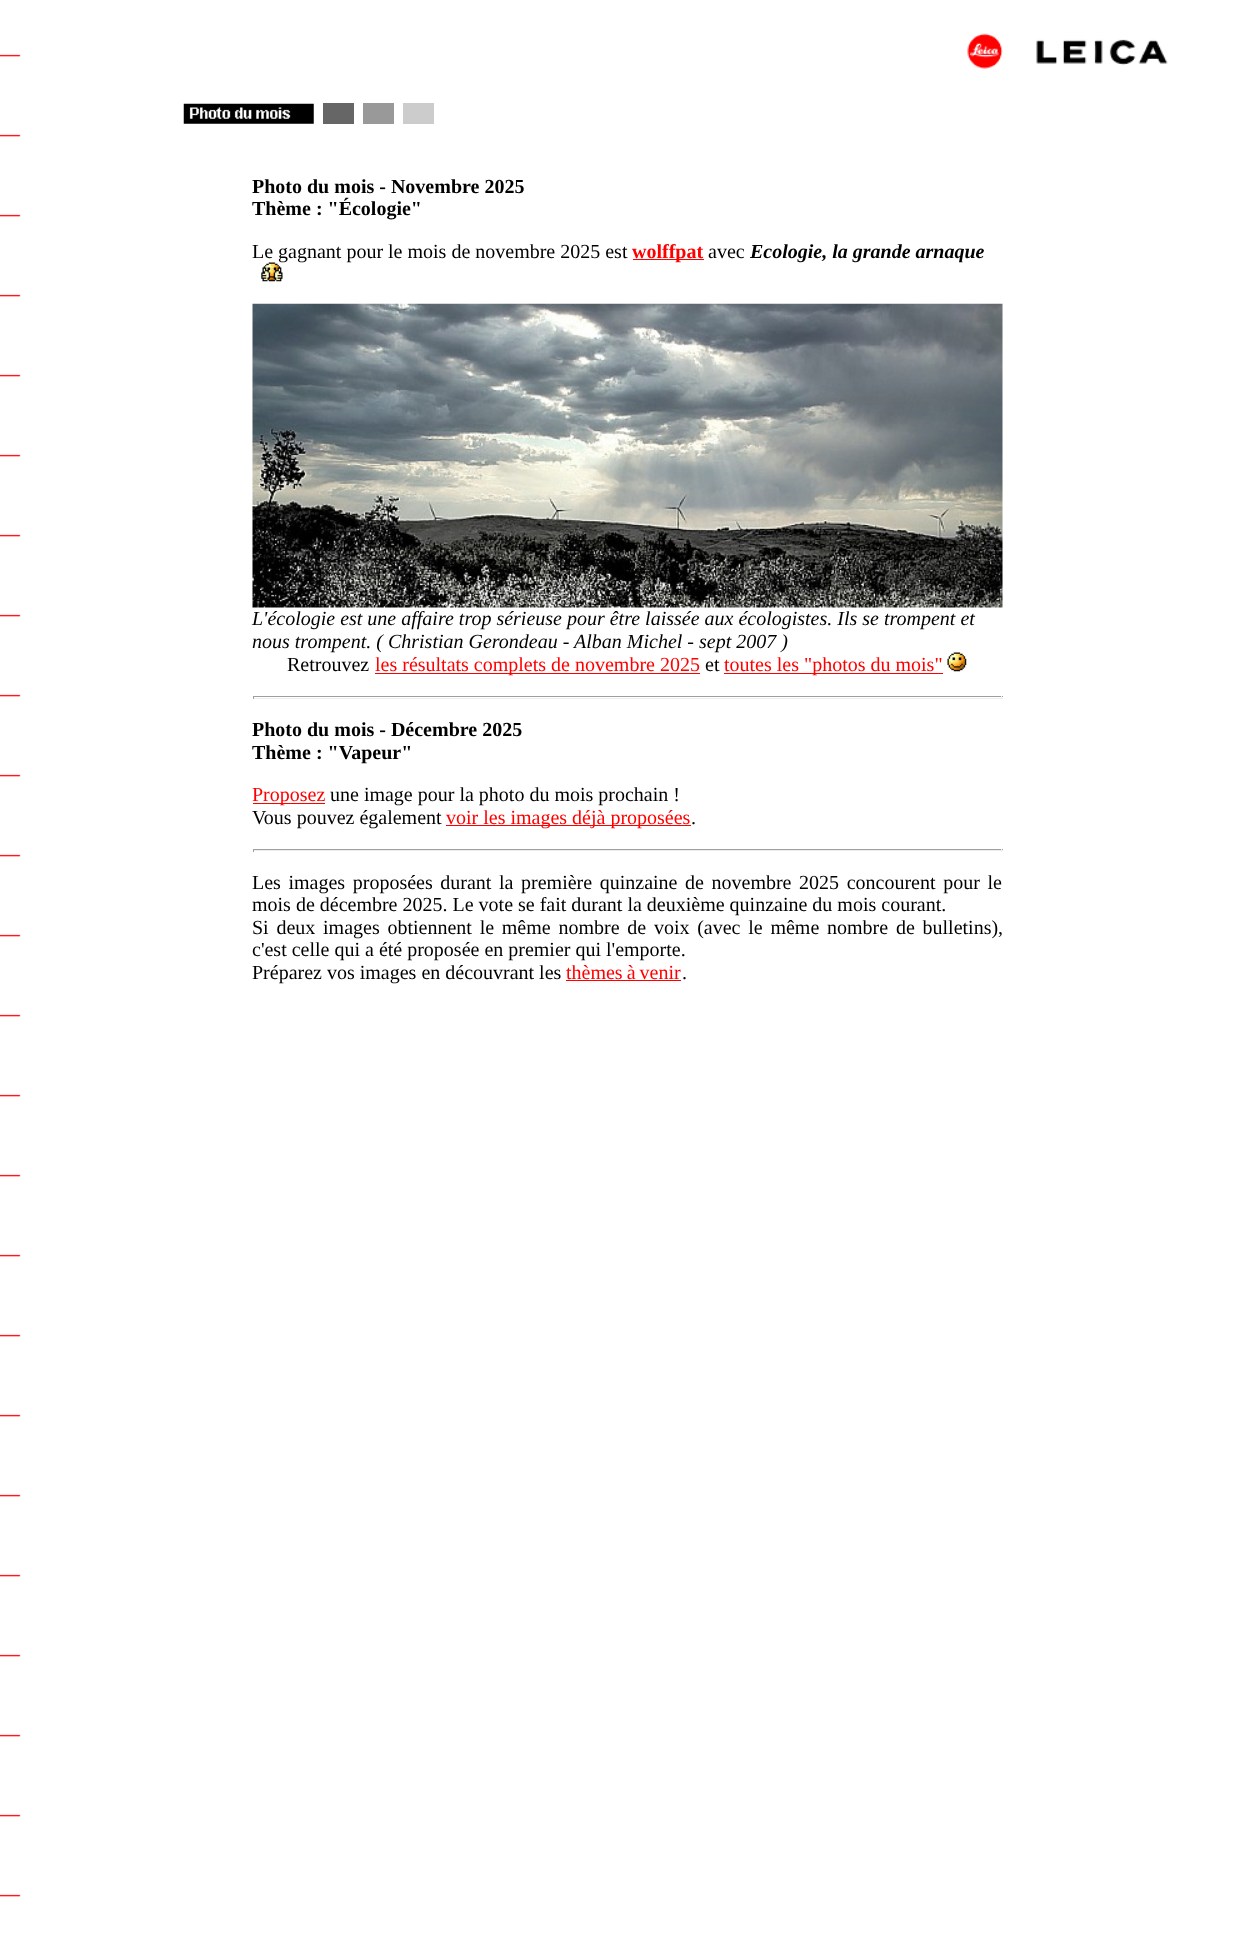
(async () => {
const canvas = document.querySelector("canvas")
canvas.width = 1253
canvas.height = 1944
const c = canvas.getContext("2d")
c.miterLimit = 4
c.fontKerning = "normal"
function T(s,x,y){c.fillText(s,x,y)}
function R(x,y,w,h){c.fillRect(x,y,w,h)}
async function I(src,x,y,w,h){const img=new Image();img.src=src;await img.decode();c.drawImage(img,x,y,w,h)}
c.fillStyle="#fff"
R(0,0,1253,1944)
await I("1.png",0,54,21,1843)
await I("2.png",967,33,201,36)
await I("3.png",183,103,131,21)
c.fillStyle="#666"
R(323,103,31,21)
c.fillStyle="#999"
R(363,103,31,21)
c.fillStyle="#ccc"
R(403,103,31,21)
c.font="bold 20px Liberation Serif"
c.fillStyle="#000"
T("Photo du mois - Novembre 2025",252,193)
T("Thème : \"Écologie\"",252,215)
c.font="20px Liberation Serif"
T("Le gagnant pour le mois de novembre 2025 est",252,258)
c.fillStyle="#f00"
R(633,259,71,1)
c.font="bold 20px Liberation Serif"
T("wolffpat",632,258)
c.font="20px Liberation Serif"
c.fillStyle="#000"
T("avec",708,258)
c.font="italic bold 20px Liberation Serif"
T("Ecologie, la grande arnaque",750,258)
await I("4.png",261,262,22,20)
await I("5.png",252,303,751,305)
c.font="italic 20px Liberation Serif"
T("L'écologie est une affaire trop sérieuse pour être laissée aux écologistes. Ils se trompent et",252,625)
T("nous trompent. ( Christian Gerondeau - Alban Michel - sept 2007 )",252,648)
c.font="20px Liberation Serif"
T("Retrouvez",287,671)
c.fillStyle="#f00"
R(375,673,325,1)
T("les résultats complets de novembre 2025",375,671)
c.fillStyle="#000"
T("et",705,671)
c.fillStyle="#f00"
R(724,673,219,1)
T("toutes les \"photos du mois\"",724,671)
await I("6.png",947,652,20,20)
c.fillStyle="#9f9f9f"
R(253,696,750,1)
c.fillStyle="#eee"
R(1001,696,1,3)
R(253,698,750,1)
c.fillStyle="#9f9f9f"
R(253,696,1,3)
c.font="bold 20px Liberation Serif"
c.fillStyle="#000"
T("Photo du mois - Décembre 2025",252,736)
T("Thème : \"Vapeur\"",252,759)
c.fillStyle="#f00"
R(253,803,72,1)
c.font="20px Liberation Serif"
T("Proposez",252,801)
c.fillStyle="#000"
T("une image pour la photo du mois prochain !",330,801)
T("Vous pouvez également",252,824)
c.fillStyle="#f00"
R(446,825,245,1)
T("voir les images déjà proposées",446,824)
c.fillStyle="#000"
T(".",691,824)
c.fillStyle="#9f9f9f"
R(253,849,750,1)
c.fillStyle="#eee"
R(1001,849,1,3)
R(253,850,750,1)
c.fillStyle="#9f9f9f"
R(253,849,1,3)
c.wordSpacing="2.6px"
c.fillStyle="#000"
T("Les images proposées durant la première quinzaine de novembre 2025 concourent pour le",252,889)
c.wordSpacing="0px"
T("mois de décembre 2025. Le vote se fait durant la deuxième quinzaine du mois courant.",252,911)
c.wordSpacing="2.75px"
T("Si deux images obtiennent le même nombre de voix (avec le même nombre de bulletins),",252,934)
c.wordSpacing="0px"
T("c'est celle qui a été proposée en premier qui l'emporte.",252,956)
T("Préparez vos images en découvrant les",252,979)
c.wordSpacing="-1px"
c.fillStyle="#f00"
T("thèmes à venir",566,979)
R(566,980,115,1)
c.wordSpacing="0px"
c.fillStyle="#000"
T(".",682,979)
})()
